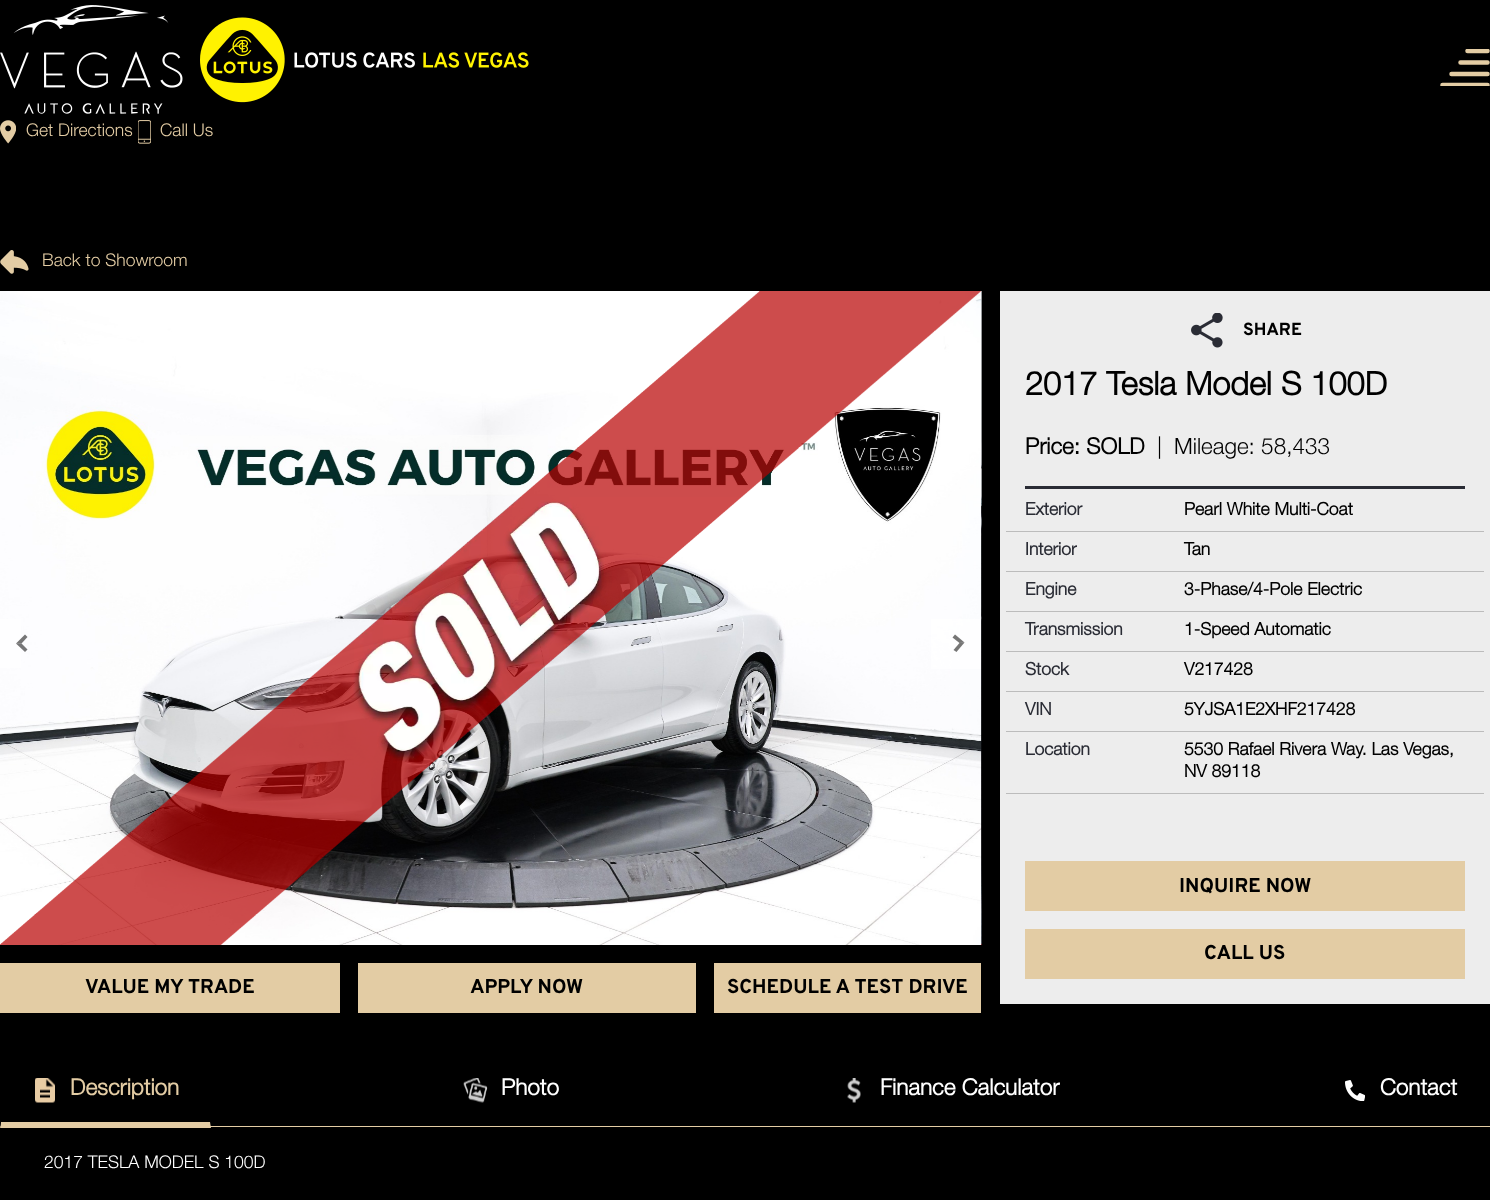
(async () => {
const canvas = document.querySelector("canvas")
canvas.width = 1490
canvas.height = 1200
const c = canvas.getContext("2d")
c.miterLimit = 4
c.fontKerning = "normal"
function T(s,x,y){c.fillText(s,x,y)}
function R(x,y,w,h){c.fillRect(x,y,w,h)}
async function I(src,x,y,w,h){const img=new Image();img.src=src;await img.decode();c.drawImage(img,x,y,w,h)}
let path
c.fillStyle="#000"
R(0,0,1490,1200)
c.save()
c.beginPath()
c.rect(1440,49,50,37)
c.clip()
path = new Path2D("M1467.5 51h20")
c.strokeStyle="#e3cca4"
c.lineWidth=4.5
c.lineCap="round"
c.stroke(path)
c.restore()
path = new Path2D("M1451.5 74h36m-27-11.5h27")
c.strokeStyle="#e3cca4"
c.lineWidth=4.5
c.lineCap="round"
c.stroke(path)
c.save()
c.beginPath()
c.rect(1440,49,50,37)
c.clip()
path = new Path2D("M1442.5 85h45")
c.stroke(path)
c.restore()
await I("1.png",0,5,183,109)
await I("2.png",200,17,329,86)
await I("3.png",0,120,16,24)
c.font="300 17.5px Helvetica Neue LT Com"
c.fillStyle="#e3cca4"
T("Get Directions",26,136)
await I("4.png",138,120,13,24)
T("Call Us",160,136)
await I("5.png",0,250,29,24)
T("Back to Showroom",42,266)
c.fillStyle="#ededed"
R(1000,291,490,713)
await I("6.png",1191,313,32,35)
c.font="800 17.5px Overpass"
c.fillStyle="#000"
T("SHARE",1243,335)
c.fillStyle="#2a2c35"
R(1025,486,440,3)
c.font="bold 32.5px Helvetica Neue LT Com"
c.fillStyle="#000"
T("2017 Tesla Model S 100D",1025,395)
c.font="bold 22.5px Helvetica Neue LT Com"
T("Price: SOLD",1025,454)
c.font="300 22.5px Helvetica Neue LT Com"
T("|",1157,454)
T("Mileage: 58,433",1174,454)
c.fillStyle="#bcbcbc"
R(1006,531,478,1)
c.font="bold 17.5px Helvetica Neue LT Com"
c.fillStyle="#2a2c35"
T("Exterior",1025,515)
c.fillStyle="#000"
T("Pearl White Multi-Coat",1184,515)
c.fillStyle="#bcbcbc"
R(1006,571,478,1)
c.fillStyle="#2a2c35"
T("Interior",1025,555)
c.fillStyle="#000"
T("Tan",1184,555)
c.fillStyle="#bcbcbc"
R(1006,611,478,1)
c.fillStyle="#2a2c35"
T("Engine",1025,595)
c.fillStyle="#000"
T("3-Phase/4-Pole Electric",1184,595)
c.fillStyle="#bcbcbc"
R(1006,651,478,1)
c.fillStyle="#2a2c35"
T("Transmission",1025,635)
c.fillStyle="#000"
T("1-Speed Automatic",1184,635)
c.fillStyle="#bcbcbc"
R(1006,691,478,1)
c.fillStyle="#2a2c35"
T("Stock",1025,675)
c.fillStyle="#000"
T("V217428",1184,675)
c.fillStyle="#bcbcbc"
R(1006,731,478,1)
c.fillStyle="#2a2c35"
T("VIN",1025,715)
c.fillStyle="#000"
T("5YJSA1E2XHF217428",1184,715)
c.fillStyle="#bcbcbc"
R(1006,793,478,1)
c.fillStyle="#2a2c35"
T("Location",1025,755)
c.fillStyle="#000"
T("5530 Rafael Rivera Way. Las Vegas,",1184,755)
T("NV 89118",1184,777)
c.fillStyle="#e3cca4"
R(1025,861,440,50)
c.font="800 20px Overpass"
c.fillStyle="#000"
T("INQUIRE NOW",1179,892)
c.fillStyle="#e3cca4"
R(1025,929,440,50)
c.fillStyle="#000"
T("CALL US",1204,959)
await I("7.png",0,291,982,654)
await I("8.png",0,291,981,654)
await I("9.png",981,291,1,654)
await I("10.png",981,943,1,2)
c.fillStyle="#fefeff"
R(0,619,21,49)
c.fillStyle="#767677"
path = new Path2D("M25 652l-9-8.5h5.5l6 6z")
c.fill(path)
c.fillStyle="#3c3c3cb3"
path = new Path2D("M16 643.5l9-9l2.5 2.5l-6 6.5z")
c.fill(path)
c.fillStyle="#ffffffb3"
R(931,619,50,50)
c.fillStyle="#767676"
path = new Path2D("M964.5 642.5l-8 9.5l-3-2l6-7z")
c.fill(path)
c.fillStyle="#3c3c3cb3"
path = new Path2D("M955 634.5l9.5 8l-5 .5l-7-5.5z")
c.fill(path)
c.fillStyle="#e3cca4"
R(0,963,340,50)
c.fillStyle="#000"
T("VALUE MY TRADE",85,993)
c.fillStyle="#e3cca4"
R(358,963,338,50)
c.fillStyle="#000"
T("APPLY NOW",470,993)
c.fillStyle="#e3cca4"
R(714,963,267,50)
c.fillStyle="#000"
T("SCHEDULE A TEST DRIVE",727,993)
c.fillStyle="#e3cca4"
R(0,1126,1490,1)
path = new Path2D("M211 1128h-211l1-6h209z")
c.fill(path)
c.fillStyle="#000"
path = new Path2D("M0 1128l1-6v-61l1-2l-1-2l-1 4z")
c.fill(path)
await I("11.png",35,1078,20,25)
c.font="bold 22.5px Helvetica Neue LT Com"
c.fillStyle="#e3cca4"
T("Description",70,1095)
await I("12.png",463,1078,25,25)
c.fillStyle="#fff"
T("Photo",501,1095)
await I("13.png",847,1078,14,25)
T("Finance Calculator",880,1095)
await I("14.png",1345,1080,20,21)
T("Contact",1380,1095)
c.font="300 17.5px Helvetica Neue LT Com"
T("2017 TESLA MODEL S 100D",44,1168)
})()
